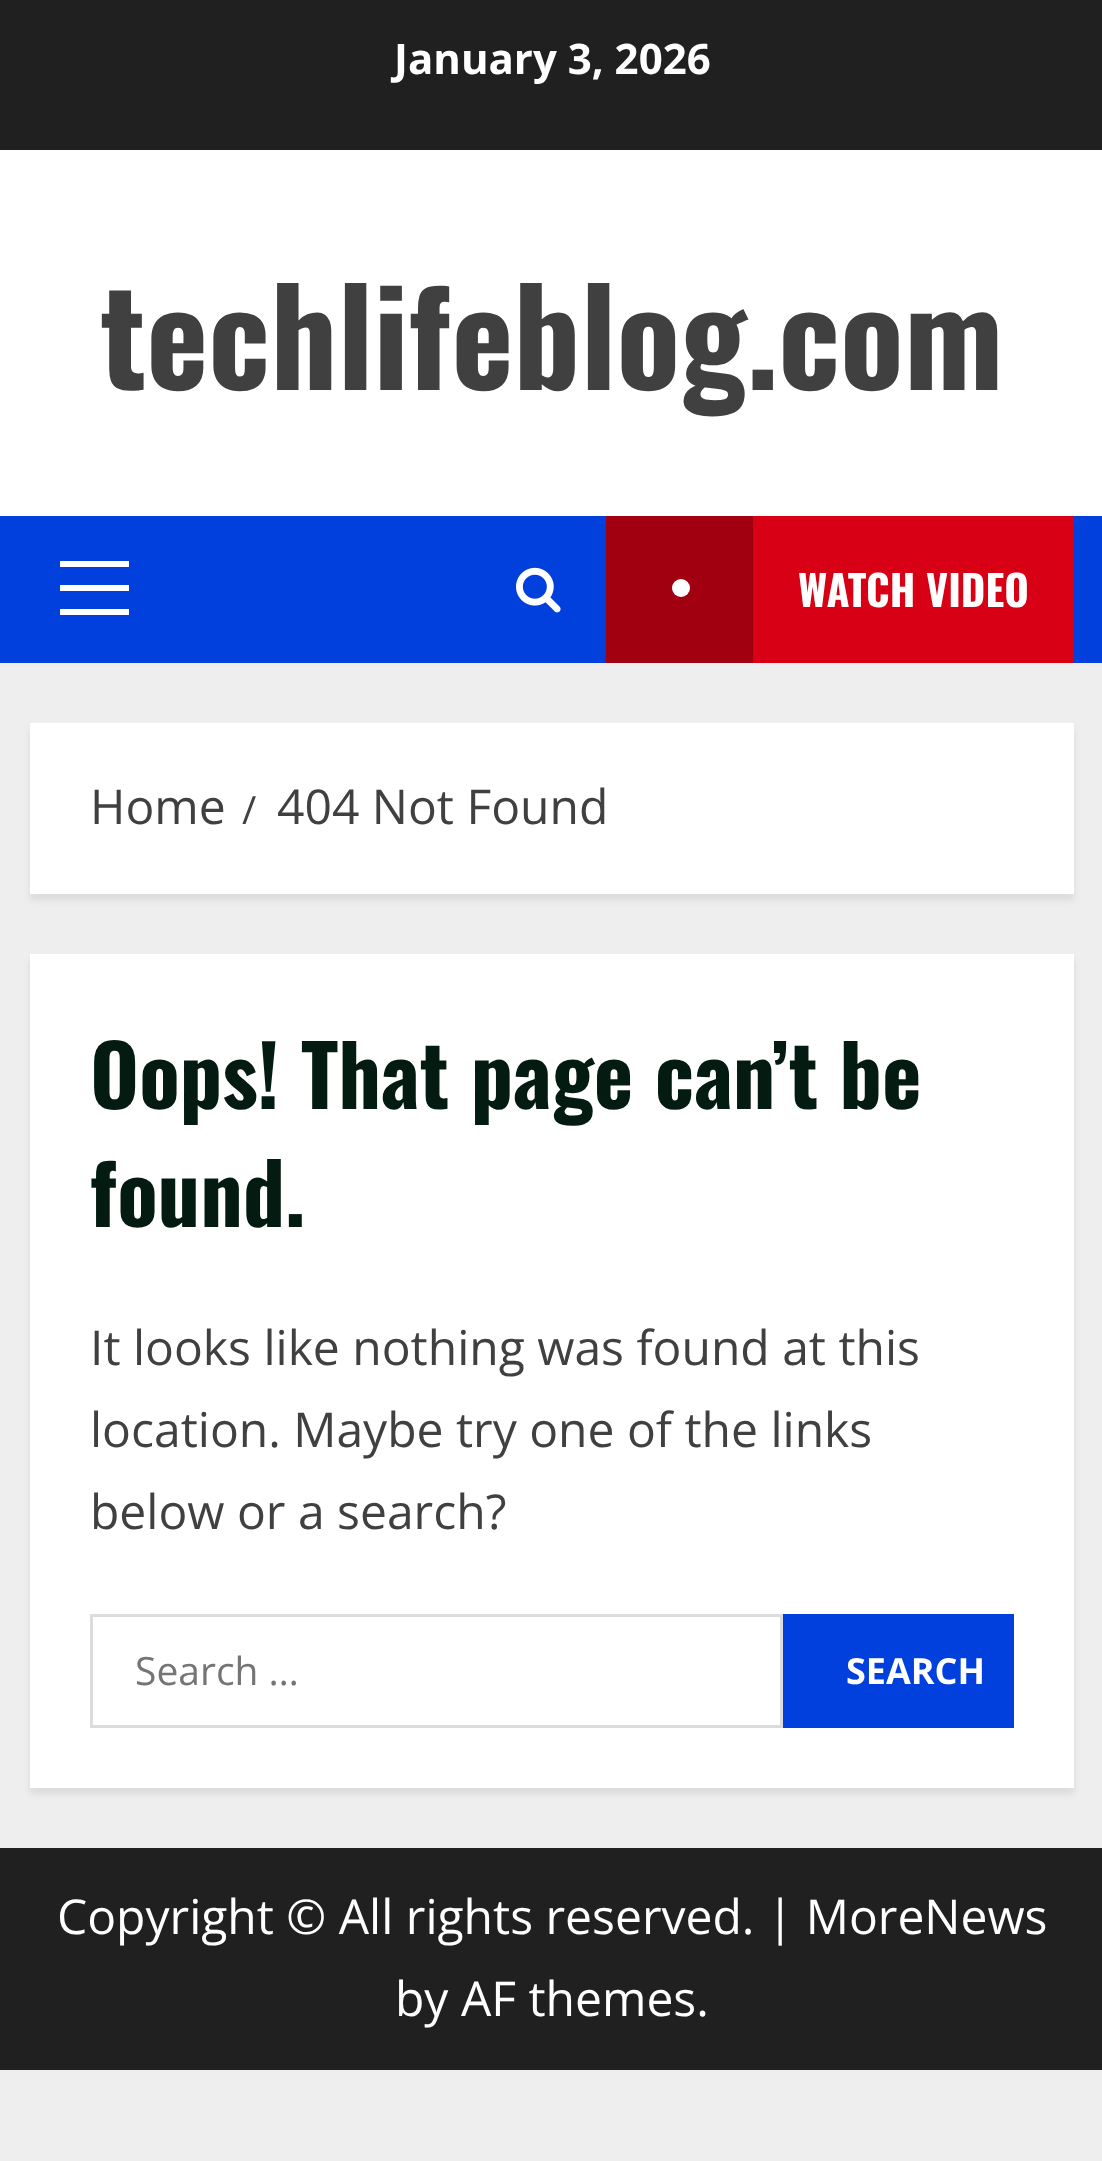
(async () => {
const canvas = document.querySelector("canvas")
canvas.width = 1102
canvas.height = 2161
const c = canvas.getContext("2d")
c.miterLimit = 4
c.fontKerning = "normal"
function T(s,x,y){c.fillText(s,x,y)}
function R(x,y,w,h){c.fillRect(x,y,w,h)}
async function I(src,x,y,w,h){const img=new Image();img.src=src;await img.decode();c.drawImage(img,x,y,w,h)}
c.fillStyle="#eee"
R(0,0,1102,2161)
c.fillStyle="#202020"
R(0,0,1102,150)
c.font="bold 42px Open Sans"
c.fillStyle="#fff"
T("January 3, 2026",394,74)
R(0,150,1102,366)
c.font="bold 132px Oswald"
c.fillStyle="#404040"
T("techlifeblog.com",100,390)
c.fillStyle="#0140dd"
R(0,516,1102,147)
c.fillStyle="#fff"
R(60,585,69,6)
R(60,561,69,6)
R(60,609,69,6)
await I("1.png",516,567,45,46)
c.fillStyle="#d70015"
R(753,516,321,147)
c.fillStyle="#a10010"
R(606,516,147,147)
c.fillStyle="#fff"
c.beginPath()
c.arc(681,588,9,0,7)
c.fill()
c.font="bold 42px Oswald"
T("WATCH VIDEO",798,607)
c.fillStyle="#00000014"
c.filter="blur(3px)"
c.beginPath()
c.rect(30,729,1044,171)
c.fill()
c.filter="none"
c.fillStyle="#fff"
R(30,723,1044,171)
c.font="48px Open Sans"
c.fillStyle="#404040"
T("Home",90,824)
c.font="39px Open Sans"
T("/",242,824)
c.font="48px Open Sans"
T("404 Not Found",277,824)
c.fillStyle="#00000014"
c.filter="blur(3px)"
c.beginPath()
c.rect(30,960,1044,834)
c.fill()
c.filter="none"
c.fillStyle="#fff"
R(30,954,1044,834)
c.font="bold 84px Oswald"
c.fillStyle="#031b11"
T("Oops! That page can’t be",90,1109)
T("found.",90,1227)
c.font="48px Open Sans"
c.fillStyle="#404040"
T("It looks like nothing was found at this",90,1365)
T("location. Maybe try one of the links",90,1447)
T("below or a search?",90,1529)
c.strokeStyle="#dcdcdc"
c.lineWidth=3
c.strokeRect(91.5,1615.5,690,111)
c.font="39px Open Sans"
c.fillStyle="#757575"
T("Search …",135,1685)
c.fillStyle="#0140dd"
R(783,1614,231,114)
c.font="bold 36px Open Sans"
c.fillStyle="#fff"
T("SEARCH",846,1684)
c.fillStyle="#202020"
R(0,1848,1102,222)
c.font="48px Open Sans"
c.fillStyle="#fff"
T("Copyright © All rights reserved. | MoreNews",57,1934)
T("by AF themes.",395,2016)
})()
